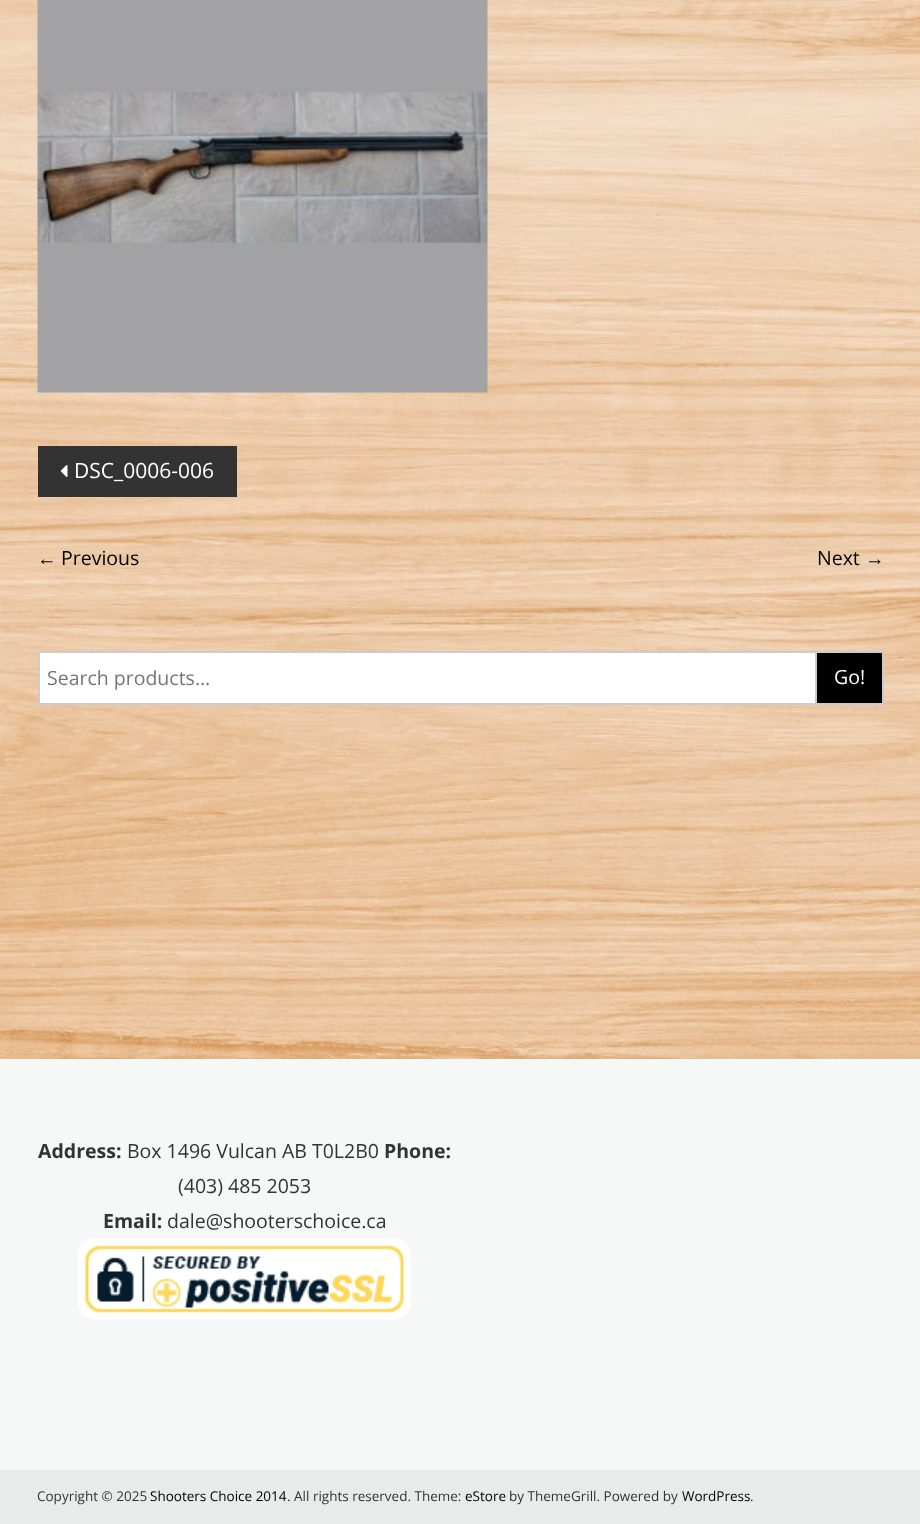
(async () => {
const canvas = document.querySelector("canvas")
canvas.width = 920
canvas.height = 1524
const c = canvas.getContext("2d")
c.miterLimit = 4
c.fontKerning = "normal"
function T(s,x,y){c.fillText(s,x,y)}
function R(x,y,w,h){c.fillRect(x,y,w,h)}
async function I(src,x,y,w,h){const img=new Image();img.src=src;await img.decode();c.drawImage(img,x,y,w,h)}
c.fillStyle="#fff"
R(0,0,920,1524)
await I("1.png",0,0,920,1059)
await I("2.png",37,0,451,393)
c.fillStyle="#333"
R(38,446,199,51)
await I("3.png",60,465,8,12)
c.font="21px Open Sans"
c.fillStyle="#fff"
T("DSC_0006-006",74,478)
c.font="19.5px Liberation Sans"
c.fillStyle="#000"
T("←",37,565)
c.font="19.5px Open Sans"
T("Previous",61,565)
T("Next",817,565)
c.font="19.5px Liberation Sans"
T("→",865,565)
c.fillStyle="#fff"
R(40,653,775,50)
c.strokeStyle="#ccc"
c.lineWidth=2
c.strokeRect(39,652,779,52)
c.font="19.5px Open Sans"
c.fillStyle="#757575"
T("Search products…",47,685)
c.fillStyle="#000"
c.beginPath()
c.rect(816,652,67,52)
c.fill()
c.stroke()
c.fillStyle="#fff"
T("Go!",834,684)
c.fillStyle="#f6f7f7"
R(0,1059,920,411)
c.font="bold 19.5px Open Sans"
c.fillStyle="#333"
T("Address:",38,1158)
c.font="19.5px Open Sans"
T("Box 1496 Vulcan AB T0L2B0",127,1158)
c.font="bold 19.5px Open Sans"
T("Phone:",384,1158)
c.font="19.5px Open Sans"
T("(403) 485 2053",178,1193)
c.font="bold 19.5px Open Sans"
T("Email:",103,1228)
c.font="19.5px Open Sans"
T("dale@shooterschoice.ca",167,1228)
await I("4.png",78,1238,333,82)
c.fillStyle="#e9ebeb"
R(0,1470,920,54)
c.font="13.5px Open Sans"
c.fillStyle="#333"
T("Copyright © 2025",37,1501)
c.fillStyle="#000"
T("Shooters Choice 2014",150,1501)
c.fillStyle="#333"
T(". All rights reserved. Theme:",287,1501)
c.fillStyle="#000"
T("eStore",465,1501)
c.fillStyle="#333"
T("by ThemeGrill. Powered by",509,1501)
c.fillStyle="#000"
T("WordPress",682,1501)
c.fillStyle="#333"
T(".",750,1501)
})()
